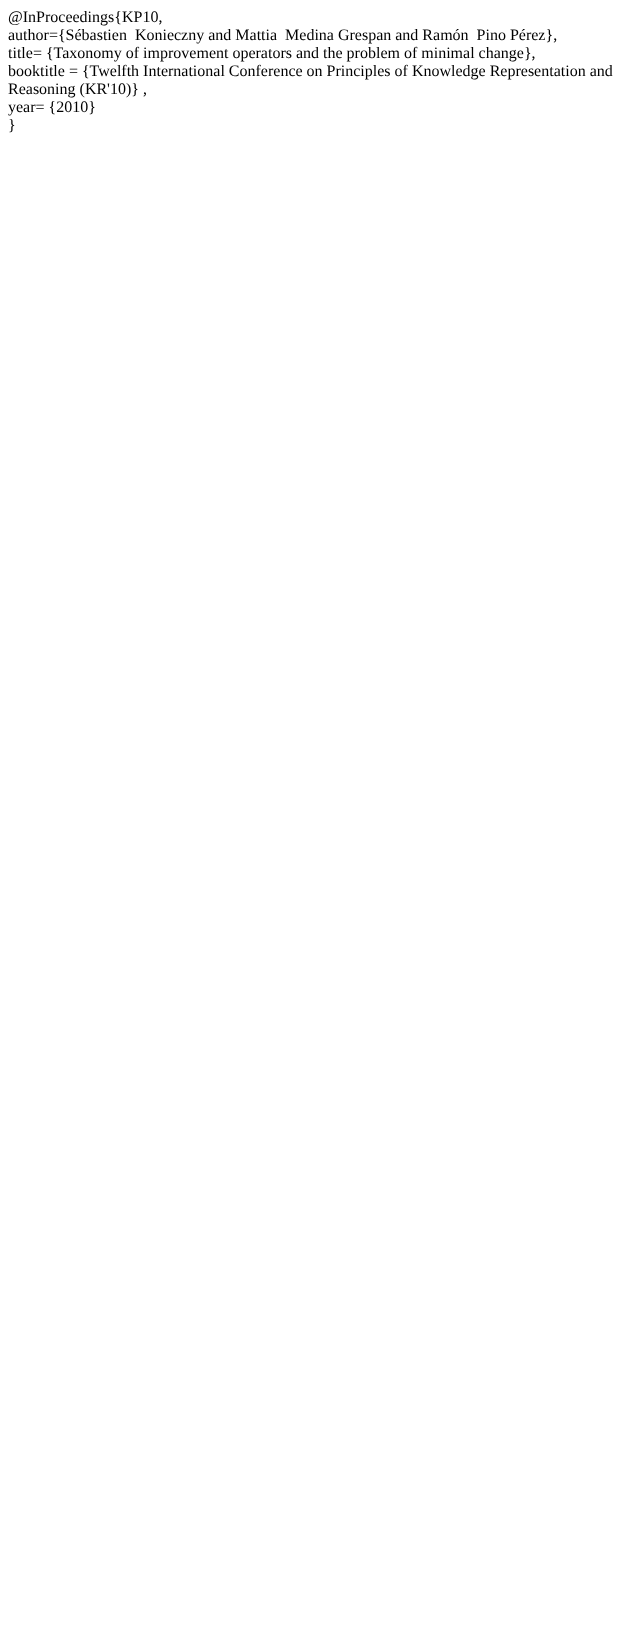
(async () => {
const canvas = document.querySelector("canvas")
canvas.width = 643
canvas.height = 1634
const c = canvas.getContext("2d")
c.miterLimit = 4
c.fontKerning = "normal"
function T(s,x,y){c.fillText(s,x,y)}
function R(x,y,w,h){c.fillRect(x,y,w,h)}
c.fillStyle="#fff"
R(0,0,643,1634)
c.font="16px Liberation Serif"
c.fillStyle="#000"
T("@InProceedings{KP10,",8,22)
T("author={Sébastien  Konieczny and Mattia  Medina Grespan and Ramón  Pino Pérez},",8,40)
T("title= {Taxonomy of improvement operators and the problem of minimal change},",8,58)
T("booktitle = {Twelfth International Conference on Principles of Knowledge Representation and",8,76)
T("Reasoning (KR'10)} ,",8,94)
T("year= {2010}",8,112)
T("}",8,130)
})()
